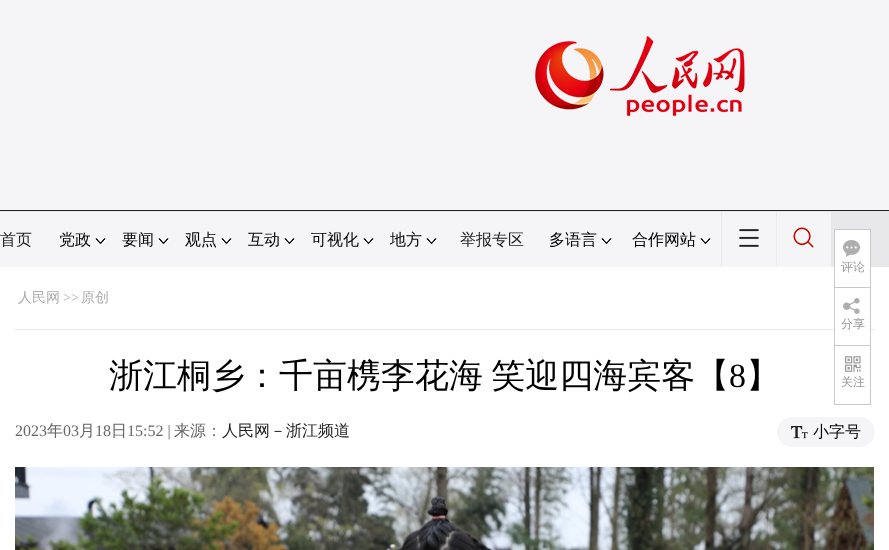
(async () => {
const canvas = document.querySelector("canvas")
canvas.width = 889
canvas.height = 550
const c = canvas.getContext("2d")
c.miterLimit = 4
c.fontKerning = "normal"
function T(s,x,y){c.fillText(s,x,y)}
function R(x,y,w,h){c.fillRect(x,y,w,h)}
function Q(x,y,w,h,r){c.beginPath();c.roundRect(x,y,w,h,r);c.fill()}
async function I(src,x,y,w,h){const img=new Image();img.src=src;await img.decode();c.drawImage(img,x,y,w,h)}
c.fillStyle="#fff"
R(0,0,889,550)
c.fillStyle="#f5f5f7"
R(0,0,889,210)
c.fillStyle="#212121"
R(0,210,889,1)
await I("1.png",535,36,210,80)
c.fillStyle="#e9e9e9"
R(0,211,889,1)
c.fillStyle="#f5f5f7"
R(0,212,831,55)
c.font="500 16px WenQuanYi Zen Hei"
c.fillStyle="#212121"
T("首页",0,245)
c.fillStyle="#000"
T("党政",59,245)
await I("2.png",95,238,11,6)
T("要闻",122,245)
await I("2.png",158,238,11,6)
T("观点",185,245)
await I("2.png",221,238,11,6)
T("互动",248,245)
await I("2.png",284,238,11,6)
T("可视化",311,245)
await I("2.png",363,238,11,6)
T("地方",390,245)
await I("2.png",426,238,11,6)
c.fillStyle="#212121"
T("举报专区",460,245)
c.fillStyle="#000"
T("多语言",549,245)
await I("2.png",601,238,11,6)
T("合作网站",632,245)
await I("2.png",700,238,11,6)
c.fillStyle="#ebebed"
R(776,212,1,55)
R(721,212,1,55)
await I("3.png",739,229,20,18)
await I("4.png",793,227,22,22)
c.fillStyle="#e8e8ea"
R(831,212,58,55)
c.fillStyle="#ececec"
R(15,329,860,1)
c.font="500 14px WenQuanYi Zen Hei"
c.fillStyle="#adadad"
T("人民网",18,302)
c.font="14px Liberation Serif"
T(">>",63,302)
c.font="500 14px WenQuanYi Zen Hei"
T("原创",81,302)
c.fillStyle="#fff"
R(835,230,35,37)
c.strokeStyle="#c9c9c9"
c.strokeRect(834.5,229.5,36,60)
await I("5.png",843,240,17,17)
c.font="500 12px WenQuanYi Zen Hei"
c.fillStyle="#999"
T("评论",841,271)
c.fillStyle="#fff"
R(835,289,35,41)
c.save()
c.beginPath()
c.rect(834,287,37,58)
c.clip()
c.strokeRect(834.5,287.5,36,59)
c.restore()
await I("6.png",843,298,17,16)
c.fillStyle="#999"
T("分享",841,328)
c.strokeRect(834.5,345.5,36,59)
await I("7.png",845,356,16,16)
T("关注",841,386)
c.wordSpacing="-2px"
c.font="500 34px WenQuanYi Zen Hei"
c.fillStyle="#000"
T("浙江桐乡：千亩槜李花海 笑迎四海宾客【",109,387)
c.wordSpacing="0px"
c.font="34px Liberation Serif"
T("8",729,387)
c.font="500 34px WenQuanYi Zen Hei"
T("】",746,387)
c.font="16px Liberation Serif"
c.fillStyle="#666"
T("2023",15,436)
c.font="500 16px WenQuanYi Zen Hei"
T("年",47,436)
c.font="16px Liberation Serif"
T("03",63,436)
c.font="500 16px WenQuanYi Zen Hei"
T("月",79,436)
c.font="16px Liberation Serif"
T("18",95,436)
c.font="500 16px WenQuanYi Zen Hei"
T("日",111,436)
c.font="16px Liberation Serif"
T("15:52 |",127,436)
c.font="500 16px WenQuanYi Zen Hei"
T("来源：",174,436)
c.fillStyle="#212121"
T("人民网－浙江频道",222,436)
c.fillStyle="#f5f5f7"
Q(777,417,98,30,15)
await I("8.png",791,426,17,13)
c.fillStyle="#000"
T("小字号",813,437)
await I("9.png",15,467,859,83)
})()
